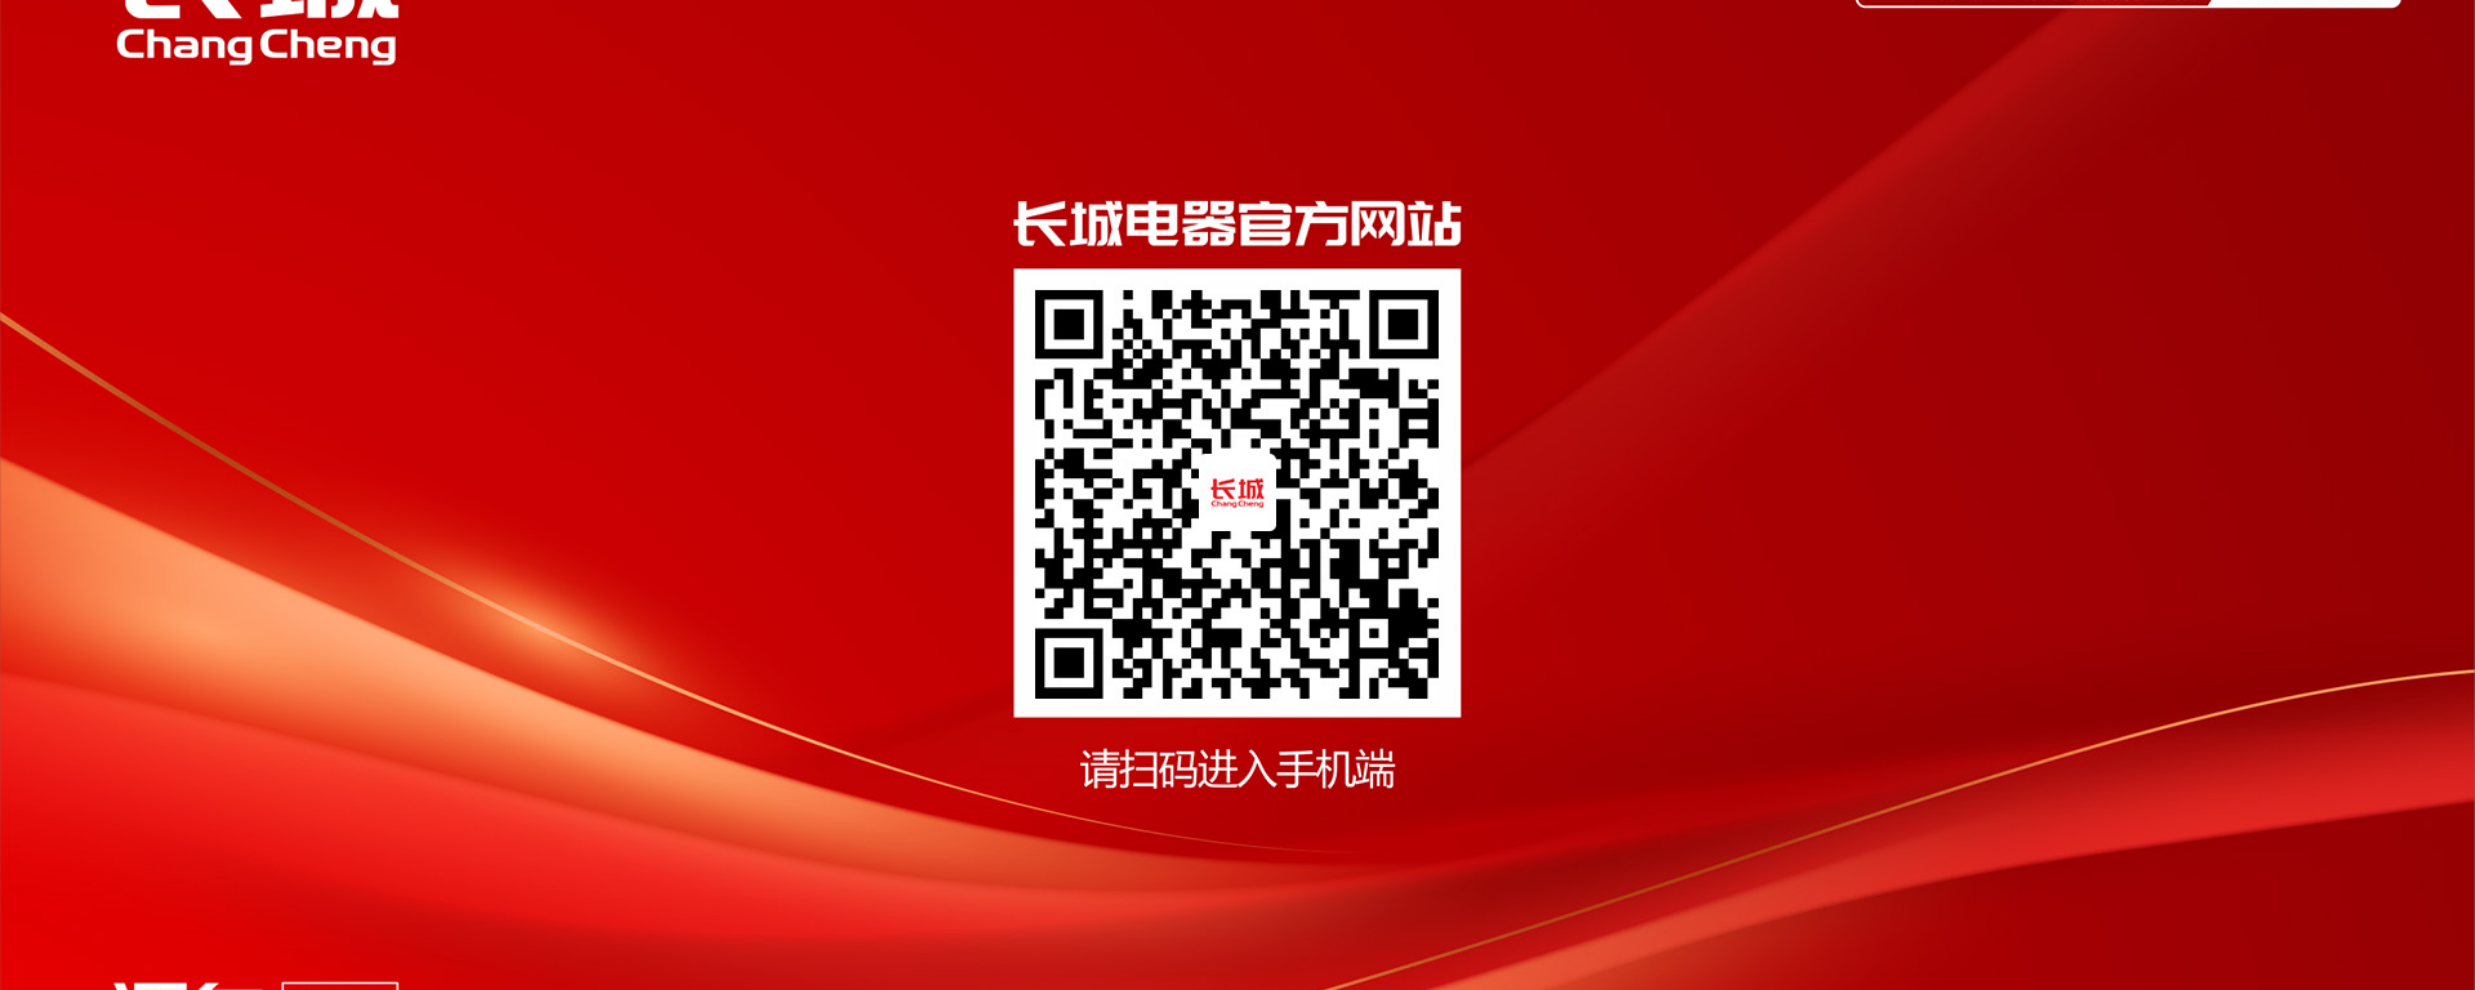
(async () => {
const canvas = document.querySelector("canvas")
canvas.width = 2475
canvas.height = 990
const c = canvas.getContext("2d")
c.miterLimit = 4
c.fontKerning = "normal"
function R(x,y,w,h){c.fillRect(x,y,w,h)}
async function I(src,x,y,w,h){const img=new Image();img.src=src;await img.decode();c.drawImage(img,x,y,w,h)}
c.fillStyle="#fff"
R(0,0,2475,990)
await I("1.png",0,0,2475,990)
})()
